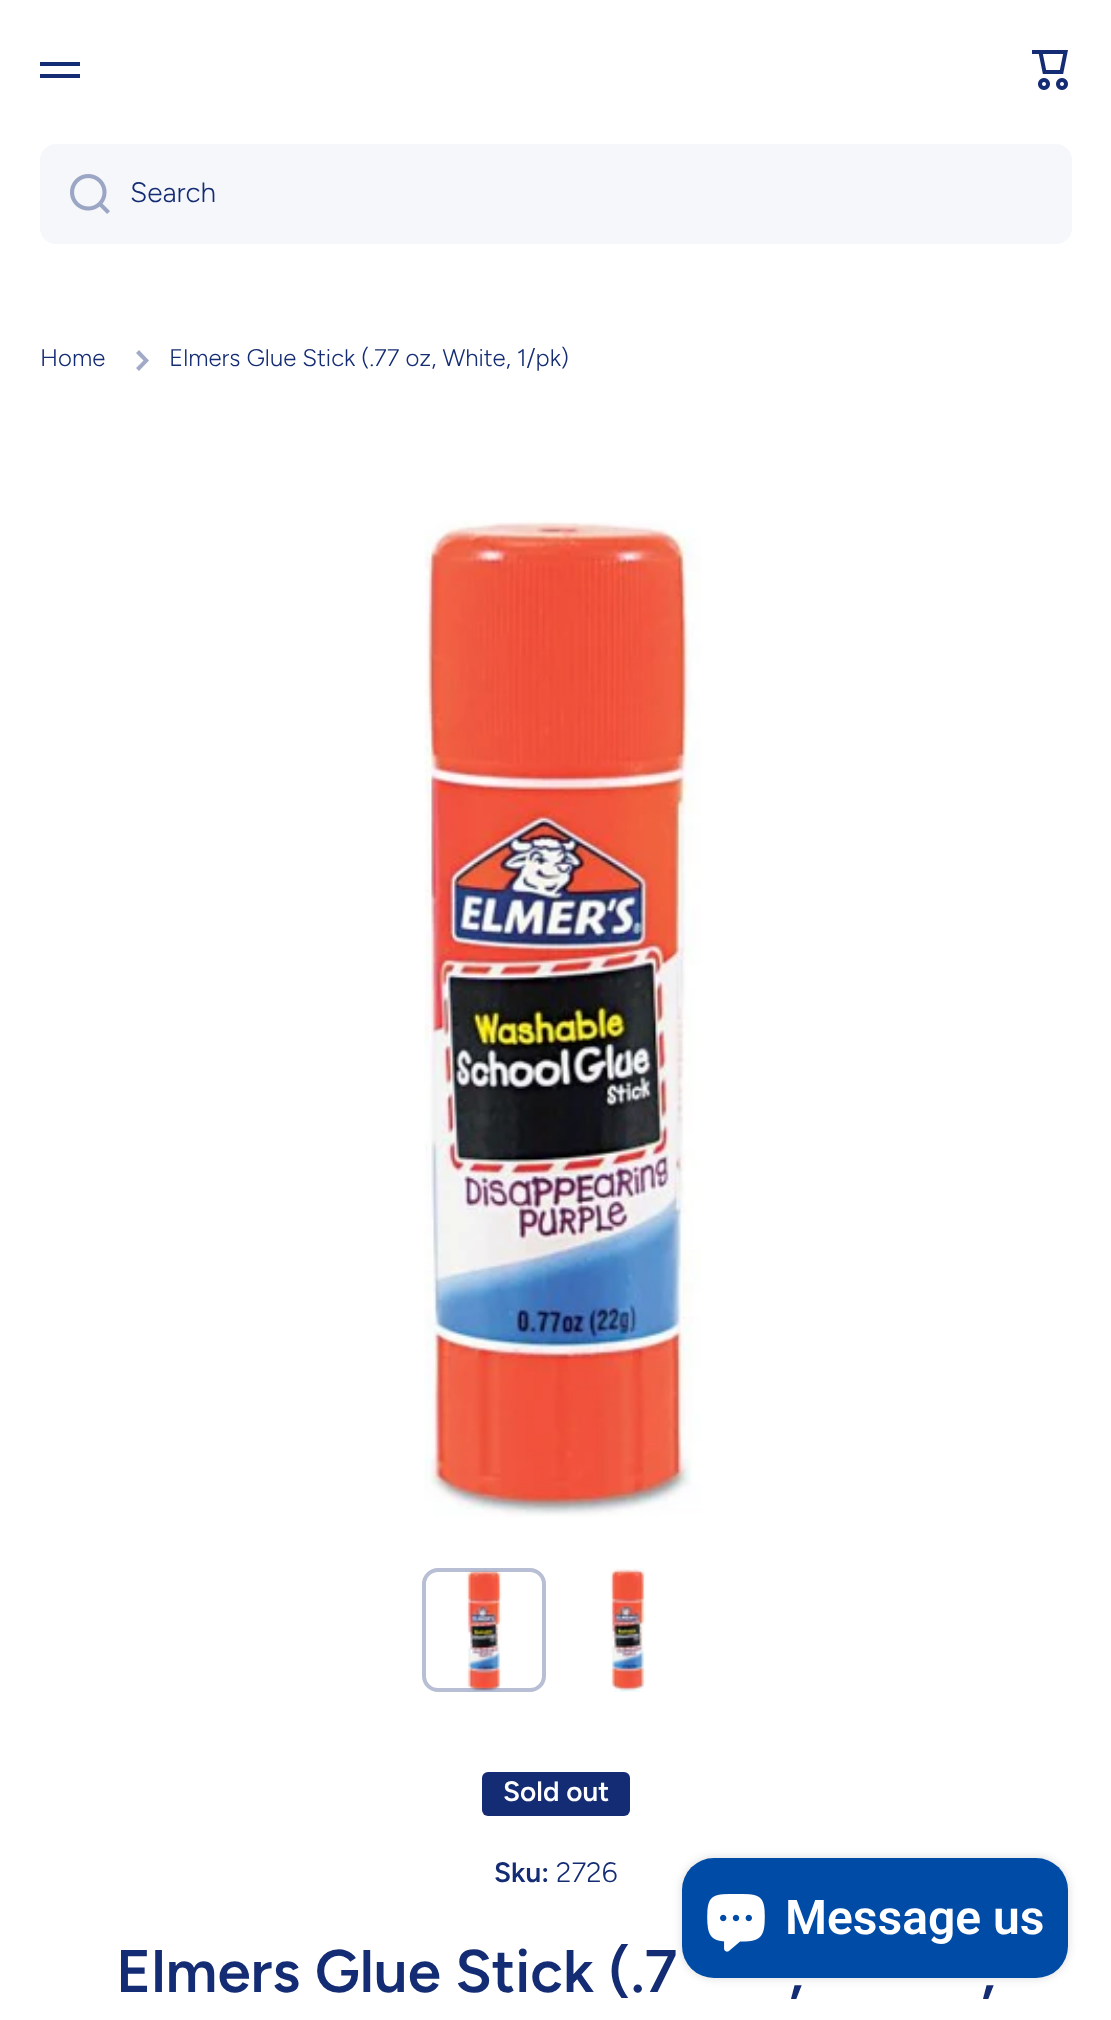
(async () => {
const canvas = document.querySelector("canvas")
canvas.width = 1111
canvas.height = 2020
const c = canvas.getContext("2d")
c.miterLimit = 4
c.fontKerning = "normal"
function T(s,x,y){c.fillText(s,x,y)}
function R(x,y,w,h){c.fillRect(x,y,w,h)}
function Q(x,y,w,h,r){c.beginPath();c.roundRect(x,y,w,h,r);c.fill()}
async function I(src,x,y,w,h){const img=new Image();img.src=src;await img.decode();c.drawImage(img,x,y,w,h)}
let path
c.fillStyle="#fff"
R(0,0,1111,2020)
c.fillStyle="#142c73"
R(40,62,40,4)
R(40,74,40,4)
await I("1.png",1032,50,36,40)
c.fillStyle="#f6f7fa"
Q(40,144,1032,100,16)
await I("2.png",70,174,40,40)
c.font="300 28px Figtree"
c.fillStyle="#142c73"
T("Search",130,202)
c.font="300 24px Figtree"
T("Home",40,366)
c.fillStyle="#a1abc7"
path = new Path2D("M143.5 360.5l-7.5-7.5l3-3l10 10.5l-10 10.5l-3-3z")
c.fill(path,"evenodd")
c.fillStyle="#142c73"
T("Elmers Glue Stick (.77 oz, White, 1/pk)",169,366)
await I("3.png",424,520,277,997)
await I("4.png",466,1568,36,124)
c.beginPath()
c.roundRect(424,1570,120,120,14)
c.strokeStyle="#142c734d"
c.lineWidth=4
c.stroke()
await I("5.png",610,1568,36,124)
Q(482,1772,148,44,6)
c.font="600 28px Figtree"
c.fillStyle="#fff"
T("Sold out",503,1801)
c.fillStyle="#142c73"
T("Sku:",494,1882)
c.font="300 28px Figtree"
T("2726",556,1882)
c.font="600 60px Figtree"
T("Elmers Glue Stick (.7",116,1992)
T(",",789,1992)
T(",",981,1992)
c.fillStyle="#00000026"
c.filter="blur(5px)"
c.beginPath()
c.roundRect(682,1858,386,120,32)
c.fill()
c.filter="none"
c.fillStyle="#004ba5"
Q(682,1858,386,120,32)
await I("6.png",707,1894,58,58)
c.font="600 48px Roboto"
c.fillStyle="#fff"
T("Message us",785,1934)
})()
